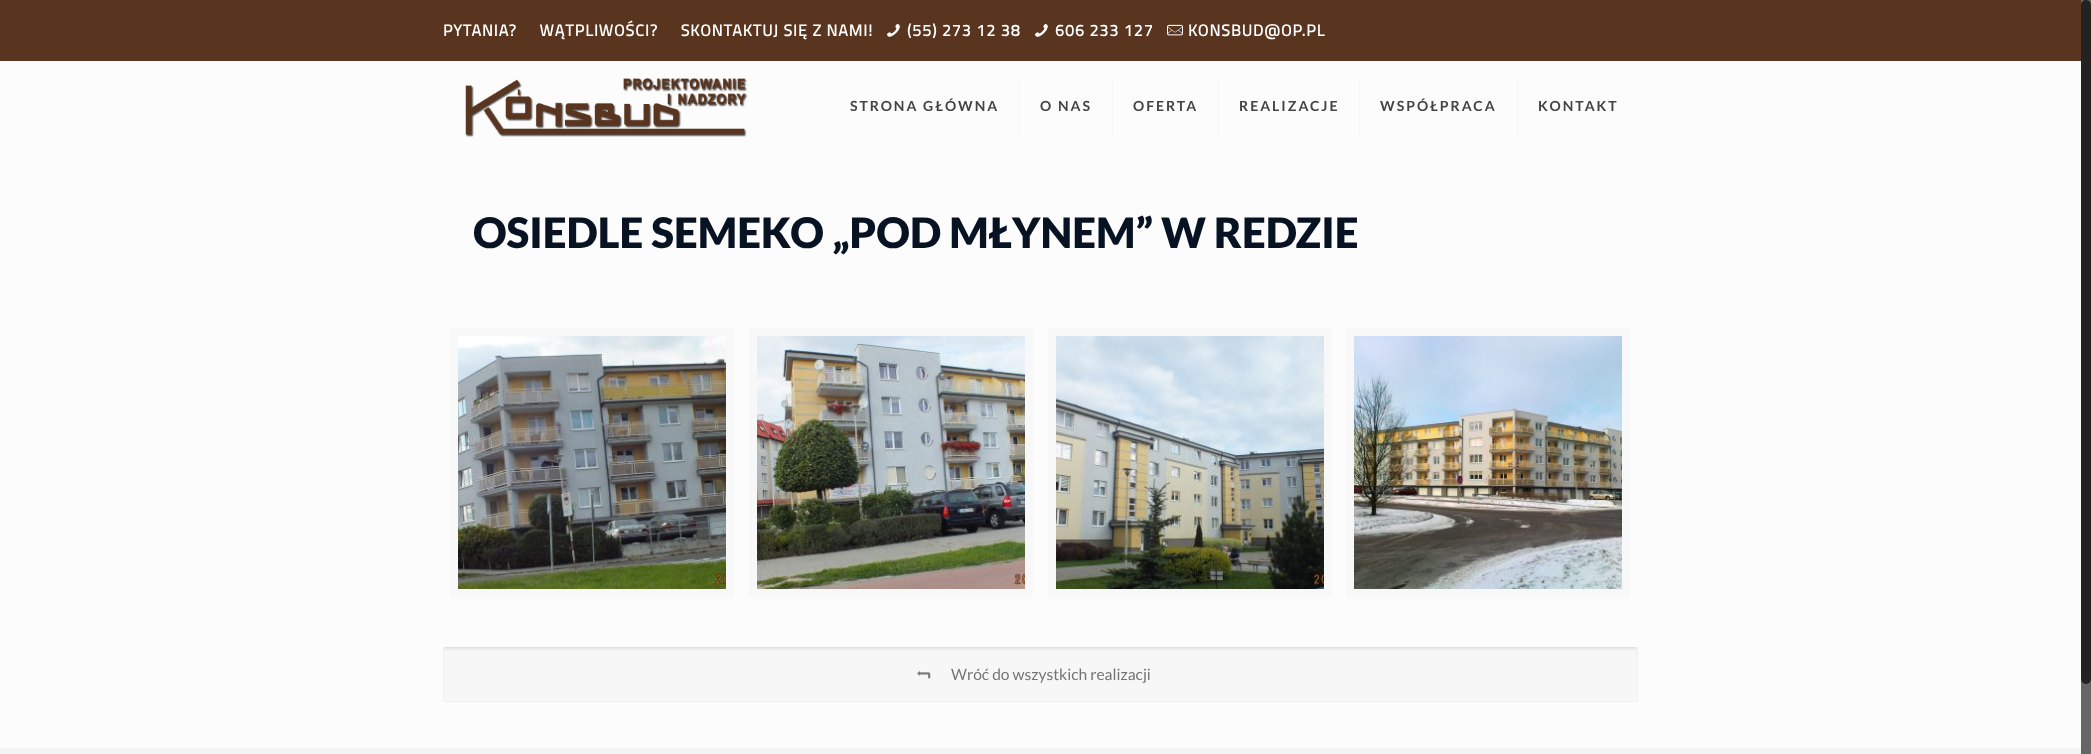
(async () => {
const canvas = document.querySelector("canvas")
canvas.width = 2091
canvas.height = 754
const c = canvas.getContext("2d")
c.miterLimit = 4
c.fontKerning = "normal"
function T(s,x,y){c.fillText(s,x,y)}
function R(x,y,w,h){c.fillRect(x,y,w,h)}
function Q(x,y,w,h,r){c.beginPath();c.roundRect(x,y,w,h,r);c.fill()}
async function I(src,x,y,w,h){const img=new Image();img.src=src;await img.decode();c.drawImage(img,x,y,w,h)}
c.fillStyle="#fcfcfc"
R(0,0,2091,754)
c.fillStyle="#59351f"
R(0,0,2081,61)
c.letterSpacing="1px"
c.font="bold 16px Titillium Web"
c.fillStyle="#fff"
T("PYTANIA?     WĄTPLIWOŚCI?     SKONTAKTUJ SIĘ Z NAMI!",443,36)
await I("1.png",887,24,13,13)
T("(55) 273 12 38",907,36)
await I("1.png",1035,24,13,13)
T("606 233 127",1055,36)
await I("2.png",1167,24,16,12)
T("KONSBUD@OP.PL",1188,36)
await I("3.png",465,78,283,59)
c.fillStyle="#f6f6f6"
R(1019,76,1,60)
c.letterSpacing="2px"
c.font="bold 14px Lato"
c.fillStyle="#444"
T("STRONA GŁÓWNA",850,111)
c.fillStyle="#f6f6f6"
R(1112,76,1,60)
c.fillStyle="#444"
T("O NAS",1040,111)
c.fillStyle="#f6f6f6"
R(1218,76,1,60)
c.fillStyle="#444"
T("OFERTA",1133,111)
c.fillStyle="#f6f6f6"
R(1359,76,1,60)
c.fillStyle="#444"
T("REALIZACJE",1239,111)
c.fillStyle="#f6f6f6"
R(1517,76,1,60)
c.fillStyle="#444"
T("WSPÓŁPRACA",1380,111)
T("KONTAKT",1538,111)
c.letterSpacing="0px"
c.font="900 42px Lato"
c.fillStyle="#071323"
T("OSIEDLE SEMEKO „POD MŁYNEM” W REDZIE",473,248)
c.strokeStyle="#f8f8f8"
c.lineWidth=8
c.strokeRect(454,332,276,261)
await I("4.png",458,336,268,253)
c.strokeRect(753,332,276,261)
await I("5.png",757,336,268,253)
c.strokeRect(1052,332,276,261)
await I("6.png",1056,336,268,253)
c.strokeRect(1350,332,276,261)
await I("7.png",1354,336,268,253)
c.fillStyle="#f7f7f7"
Q(443,647,1195,55,5)
c.fillStyle="#0000000d"
R(444,647,1193,3)
c.strokeStyle="#00000008"
c.lineWidth=1
c.strokeRect(443.5,647.5,1194,54)
await I("8.png",917,671,14,8)
c.font="15.6px Lato"
c.fillStyle="#747474"
T("Wróć do wszystkich realizacji",951,680)
c.fillStyle="#f3f3f3"
R(0,748,2081,6)
c.fillStyle="#666"
R(2081,0,10,754)
c.fillStyle="#222"
Q(2081,0,10,684,5)
})()
